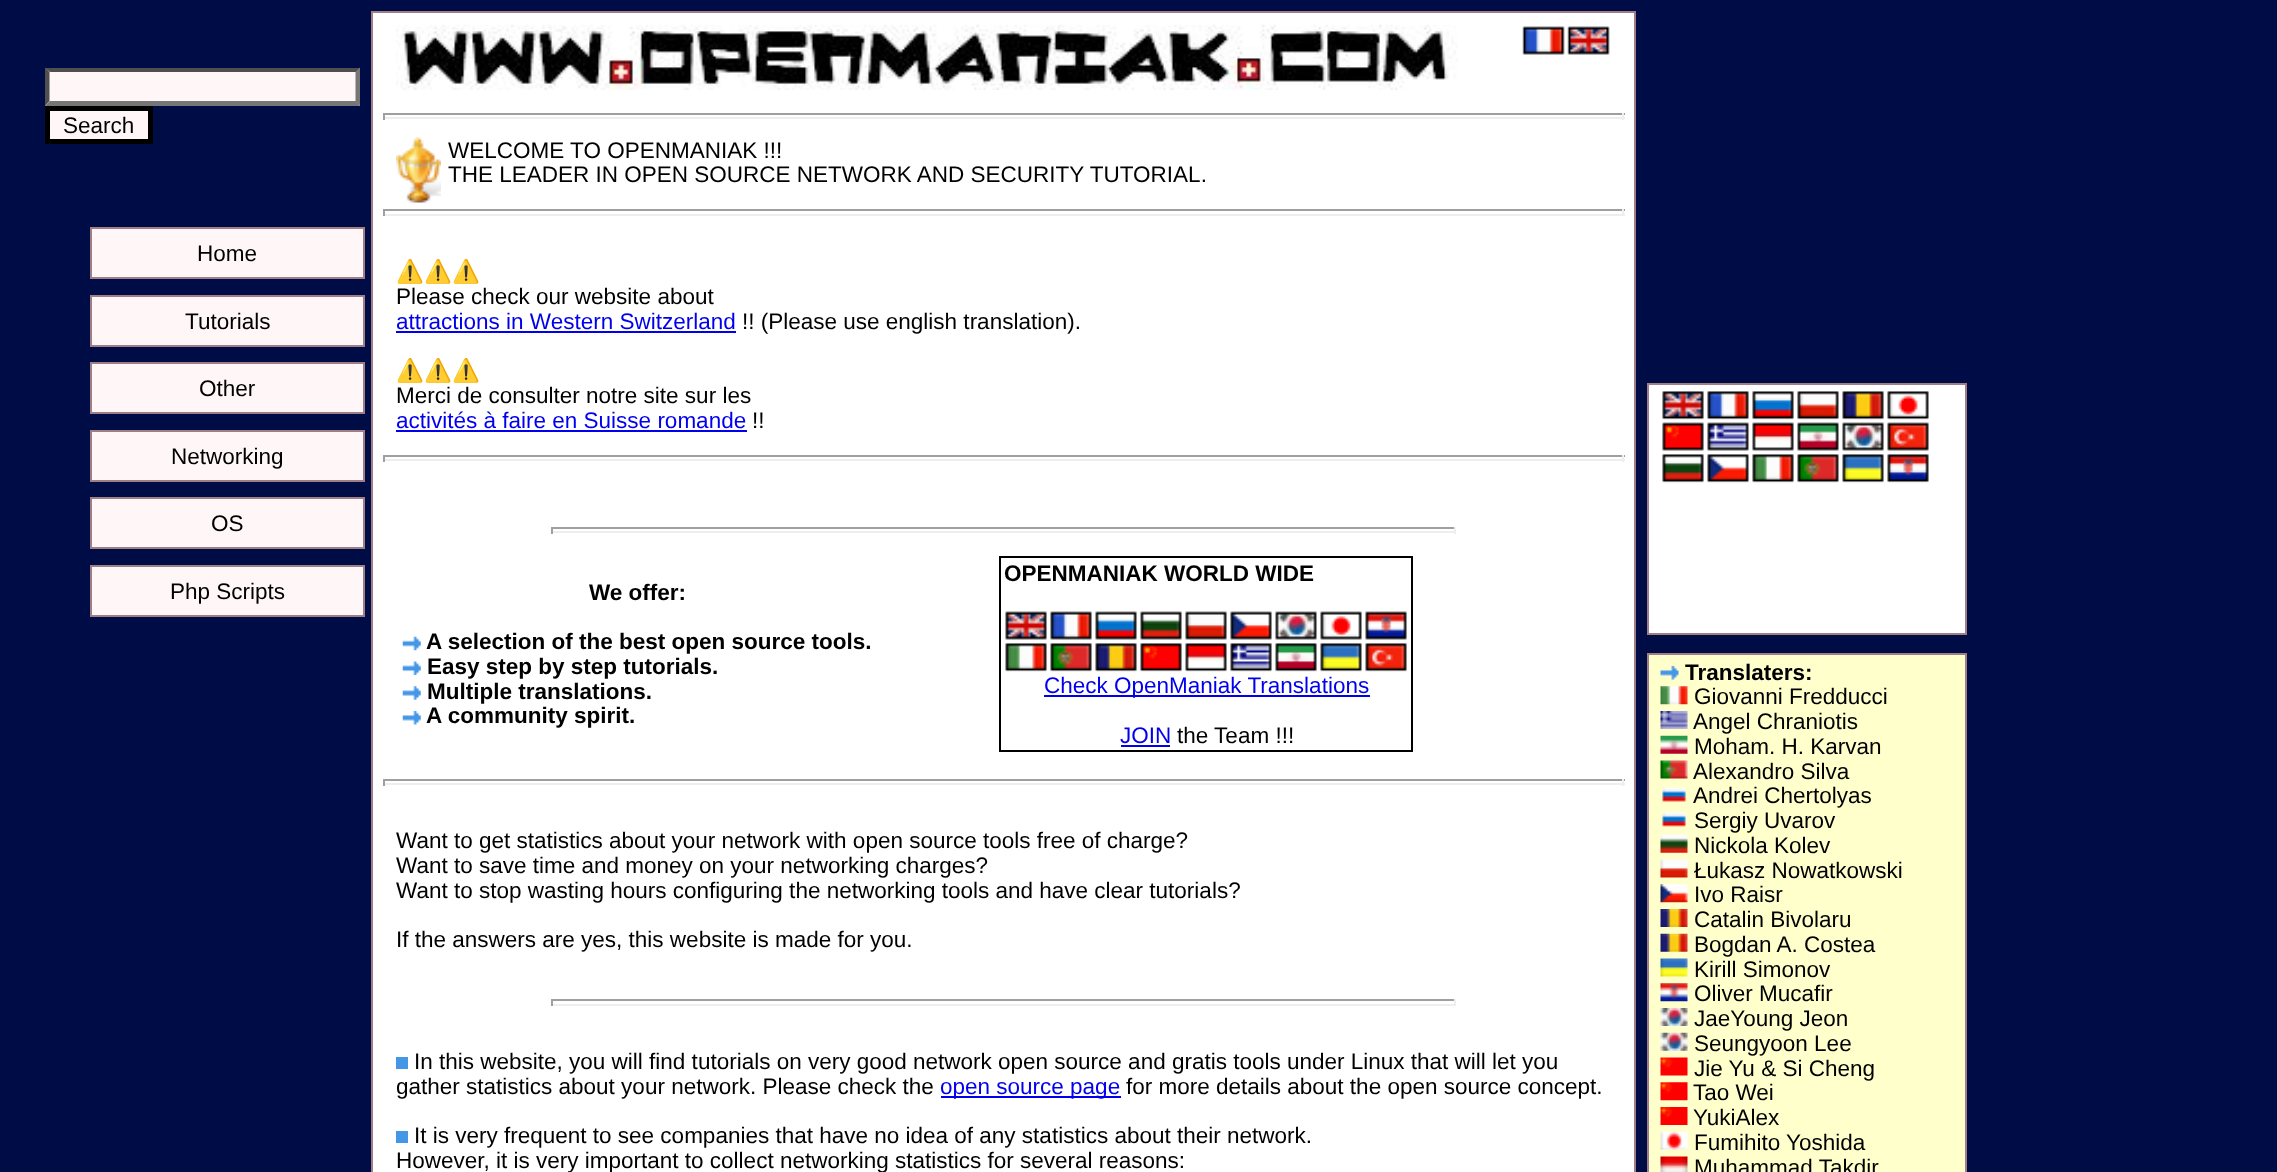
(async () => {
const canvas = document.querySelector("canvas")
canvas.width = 2277
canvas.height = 1172
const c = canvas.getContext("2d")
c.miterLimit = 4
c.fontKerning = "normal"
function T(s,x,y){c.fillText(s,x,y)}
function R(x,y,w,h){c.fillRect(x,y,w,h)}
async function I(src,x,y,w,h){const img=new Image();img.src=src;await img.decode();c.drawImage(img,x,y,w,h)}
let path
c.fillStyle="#000c46"
R(0,0,2277,1172)
c.fillStyle="#fff7f7"
R(45,68,315,38)
c.fillStyle="#4f4f4f"
path = new Path2D("M45 68h315l-4 4h-306z")
c.fill(path)
c.fillStyle="#767676"
path = new Path2D("M360 67.5v38.5l-4.5-5v-29z")
c.fill(path)
path = new Path2D("M360 106h-315l5-5h306z")
c.fill(path)
c.fillStyle="#4f4f4f"
path = new Path2D("M45 106v-38.5l4.5 4.5v29z")
c.fill(path)
c.fillStyle="#fff7f7"
c.beginPath()
c.rect(47.5,108.5,103,33)
c.fill()
c.strokeStyle="#000"
c.lineWidth=5
c.stroke()
c.font="22.5px Liberation Sans"
c.fillStyle="#000"
T("Search",63,133)
c.fillStyle="#fff7f7"
c.beginPath()
c.rect(91,228,273,50)
c.fill()
c.strokeStyle="#9f7f85"
c.lineWidth=2
c.stroke()
c.fillStyle="#000"
T("Home",197,261)
c.fillStyle="#fff7f7"
c.beginPath()
c.rect(91,296,273,50)
c.fill()
c.stroke()
c.fillStyle="#000"
T("Tutorials",185,329)
c.fillStyle="#fff7f7"
c.beginPath()
c.rect(91,363,273,50)
c.fill()
c.stroke()
c.fillStyle="#000"
T("Other",199,396)
c.fillStyle="#fff7f7"
c.beginPath()
c.rect(91,431,273,50)
c.fill()
c.stroke()
c.fillStyle="#000"
T("Networking",171,464)
c.fillStyle="#fff7f7"
c.beginPath()
c.rect(91,498,273,50)
c.fill()
c.stroke()
c.fillStyle="#000"
T("OS",211,531)
c.fillStyle="#fff7f7"
c.beginPath()
c.rect(91,566,273,50)
c.fill()
c.stroke()
c.fillStyle="#000"
T("Php Scripts",170,599)
c.fillStyle="#fff"
c.beginPath()
c.rect(372,12,1263,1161)
c.fill()
c.stroke()
await I("1.png",396,24,1062,66)
await I("2.png",1522,26,43,29)
await I("3.png",1567,26,43,29)
c.fillStyle="#9f9f9f"
R(383,113,1242,2)
c.fillStyle="#eee"
R(1622,113,2,7)
R(383,117,1242,2)
c.fillStyle="#9f9f9f"
R(383,113,2,7)
await I("4.png",396,137,45,66)
c.fillStyle="#000"
T("WELCOME TO OPENMANIAK !!!",448,158)
T("THE LEADER IN OPEN SOURCE NETWORK AND SECURITY TUTORIAL.",448,182)
c.fillStyle="#9f9f9f"
R(383,209,1242,2)
c.fillStyle="#eee"
R(1622,209,2,7)
R(383,214,1242,2)
c.fillStyle="#9f9f9f"
R(383,209,2,7)
c.font="22.5px Noto Color Emoji"
c.fillStyle="#000"
T("⚠️⚠️⚠️",396,279)
c.font="22.5px Liberation Sans"
T("Please check our website about",396,304)
c.fillStyle="#00e"
T("attractions in Western Switzerland",396,329)
R(396,331,340,2)
c.fillStyle="#000"
T("!! (Please use english translation).",742,329)
c.font="22.5px Noto Color Emoji"
T("⚠️⚠️⚠️",396,378)
c.font="22.5px Liberation Sans"
T("Merci de consulter notre site sur les",396,403)
c.fillStyle="#00e"
T("activités à faire en Suisse romande",396,428)
R(396,430,351,2)
c.fillStyle="#000"
T("!!",752,428)
c.fillStyle="#9f9f9f"
R(383,455,1242,2)
c.fillStyle="#eee"
R(1622,455,2,7)
R(383,459,1242,2)
c.fillStyle="#9f9f9f"
R(383,455,2,7)
R(551,527,905,2)
c.fillStyle="#eee"
R(1454,527,2,7)
R(551,531,905,2)
c.fillStyle="#9f9f9f"
R(551,527,2,7)
c.font="bold 22.5px Liberation Sans"
c.fillStyle="#000"
T("We offer:",589,600)
await I("5.png",402,636,19,15)
T("A selection of the best open source tools.",426,649)
await I("6.png",402,661,19,14)
T("Easy step by step tutorials.",427,674)
await I("7.png",402,686,19,14)
T("Multiple translations.",427,699)
await I("8.png",402,711,19,14)
T("A community spirit.",426,723)
c.strokeStyle="#000"
c.strokeRect(1000,557,412,194)
T("OPENMANIAK WORLD WIDE",1004,581)
await I("9.png",1005,611,42,29)
await I("10.png",1050,611,42,29)
await I("11.png",1095,611,42,29)
await I("12.png",1140,611,42,29)
await I("13.png",1185,611,42,29)
await I("14.png",1230,611,42,29)
await I("15.png",1275,611,42,29)
await I("16.png",1320,611,42,29)
await I("17.png",1365,611,42,29)
await I("18.png",1005,643,42,29)
await I("19.png",1050,643,42,29)
await I("20.png",1095,643,42,29)
await I("21.png",1140,643,42,29)
await I("22.png",1185,643,42,29)
await I("23.png",1230,643,42,29)
await I("24.png",1275,643,42,29)
await I("25.png",1320,643,42,29)
await I("26.png",1365,643,42,29)
c.fillStyle="#00e"
R(1044,695,326,2)
c.font="22.5px Liberation Sans"
T("Check OpenManiak Translations",1044,693)
T("JOIN",1120,743)
R(1121,745,49,2)
c.fillStyle="#000"
T("the Team !!!",1177,743)
c.fillStyle="#9f9f9f"
R(383,779,1242,2)
c.fillStyle="#eee"
R(1622,779,2,7)
R(383,783,1242,2)
c.fillStyle="#9f9f9f"
R(383,779,2,7)
c.fillStyle="#000"
T("Want to get statistics about your network with open source tools free of charge?",396,848)
T("Want to save time and money on your networking charges?",396,873)
T("Want to stop wasting hours configuring the networking tools and have clear tutorials?",396,898)
T("If the answers are yes, this website is made for you.",396,947)
c.fillStyle="#9f9f9f"
R(551,999,905,2)
c.fillStyle="#eee"
R(1454,999,2,7)
R(551,1004,905,2)
c.fillStyle="#9f9f9f"
R(551,999,2,7)
c.fillStyle="#4496e7"
R(396,1057,12,12)
c.fillStyle="#000"
T("In this website, you will find tutorials on very good network open source and gratis tools under Linux that will let you",414,1069)
T("gather statistics about your network. Please check the",396,1094)
c.fillStyle="#00e"
R(941,1096,180,2)
T("open source page",940,1094)
c.fillStyle="#000"
T("for more details about the open source concept.",1126,1094)
c.fillStyle="#4496e7"
R(396,1131,12,12)
c.fillStyle="#000"
T("It is very frequent to see companies that have no idea of any statistics about their network.",414,1143)
T("However, it is very important to collect networking statistics for several reasons:",396,1168)
c.fillStyle="#fff"
c.beginPath()
c.rect(1648,384,318,250)
c.fill()
c.strokeStyle="#9f7f85"
c.stroke()
await I("27.png",1662,391,42,29)
await I("28.png",1707,391,42,29)
await I("29.png",1752,391,42,29)
await I("30.png",1797,391,42,29)
await I("31.png",1842,391,42,29)
await I("32.png",1887,391,42,29)
await I("33.png",1662,422,42,29)
await I("34.png",1707,422,42,29)
await I("35.png",1752,422,42,29)
await I("36.png",1797,422,42,29)
await I("15.png",1842,422,42,29)
await I("37.png",1887,422,42,29)
await I("38.png",1662,454,42,29)
await I("39.png",1707,454,42,29)
await I("40.png",1752,454,42,29)
await I("19.png",1797,454,42,29)
await I("25.png",1842,454,42,29)
await I("41.png",1887,454,42,29)
c.fillStyle="#ffc"
c.beginPath()
c.rect(1648,654,318,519)
c.fill()
c.stroke()
await I("42.png",1660,666,19,14)
c.font="bold 22.5px Liberation Sans"
c.fillStyle="#000"
T("Translaters:",1685,680)
await I("43.png",1660,686,28,19)
c.font="22.5px Liberation Sans"
T("Giovanni Fredducci",1694,704)
await I("44.png",1660,711,28,18)
T("Angel Chraniotis",1693,729)
await I("45.png",1660,735,28,19)
T("Moham. H. Karvan",1694,754)
await I("46.png",1660,760,28,19)
T("Alexandro Silva",1693,779)
await I("47.png",1662,787,24,15)
T("Andrei Chertolyas",1693,803)
await I("48.png",1662,811,24,16)
T("Sergiy Uvarov",1694,828)
await I("49.png",1660,834,28,19)
T("Nickola Kolev",1694,853)
await I("50.png",1660,859,28,19)
T("Łukasz Nowatkowski",1694,878)
await I("51.png",1660,884,28,19)
T("Ivo Raisr",1694,902)
await I("52.png",1660,909,28,18)
T("Catalin Bivolaru",1694,927)
await I("53.png",1660,933,28,19)
T("Bogdan A. Costea",1694,952)
await I("54.png",1660,958,28,19)
T("Kirill Simonov",1694,977)
await I("55.png",1660,983,28,19)
T("Oliver Mucafir",1694,1001)
await I("56.png",1660,1008,28,18)
T("JaeYoung Jeon",1694,1026)
await I("57.png",1660,1032,28,19)
T("Seungyoon Lee",1694,1051)
await I("58.png",1660,1057,28,19)
T("Jie Yu & Si Cheng",1694,1076)
await I("59.png",1660,1082,28,19)
T("Tao Wei",1693,1100)
await I("60.png",1660,1107,28,18)
T("YukiAlex",1693,1125)
await I("61.png",1660,1131,28,19)
T("Fumihito Yoshida",1694,1150)
await I("62.png",1660,1156,28,16)
T("Muhammad Takdir",1694,1175)
})()
